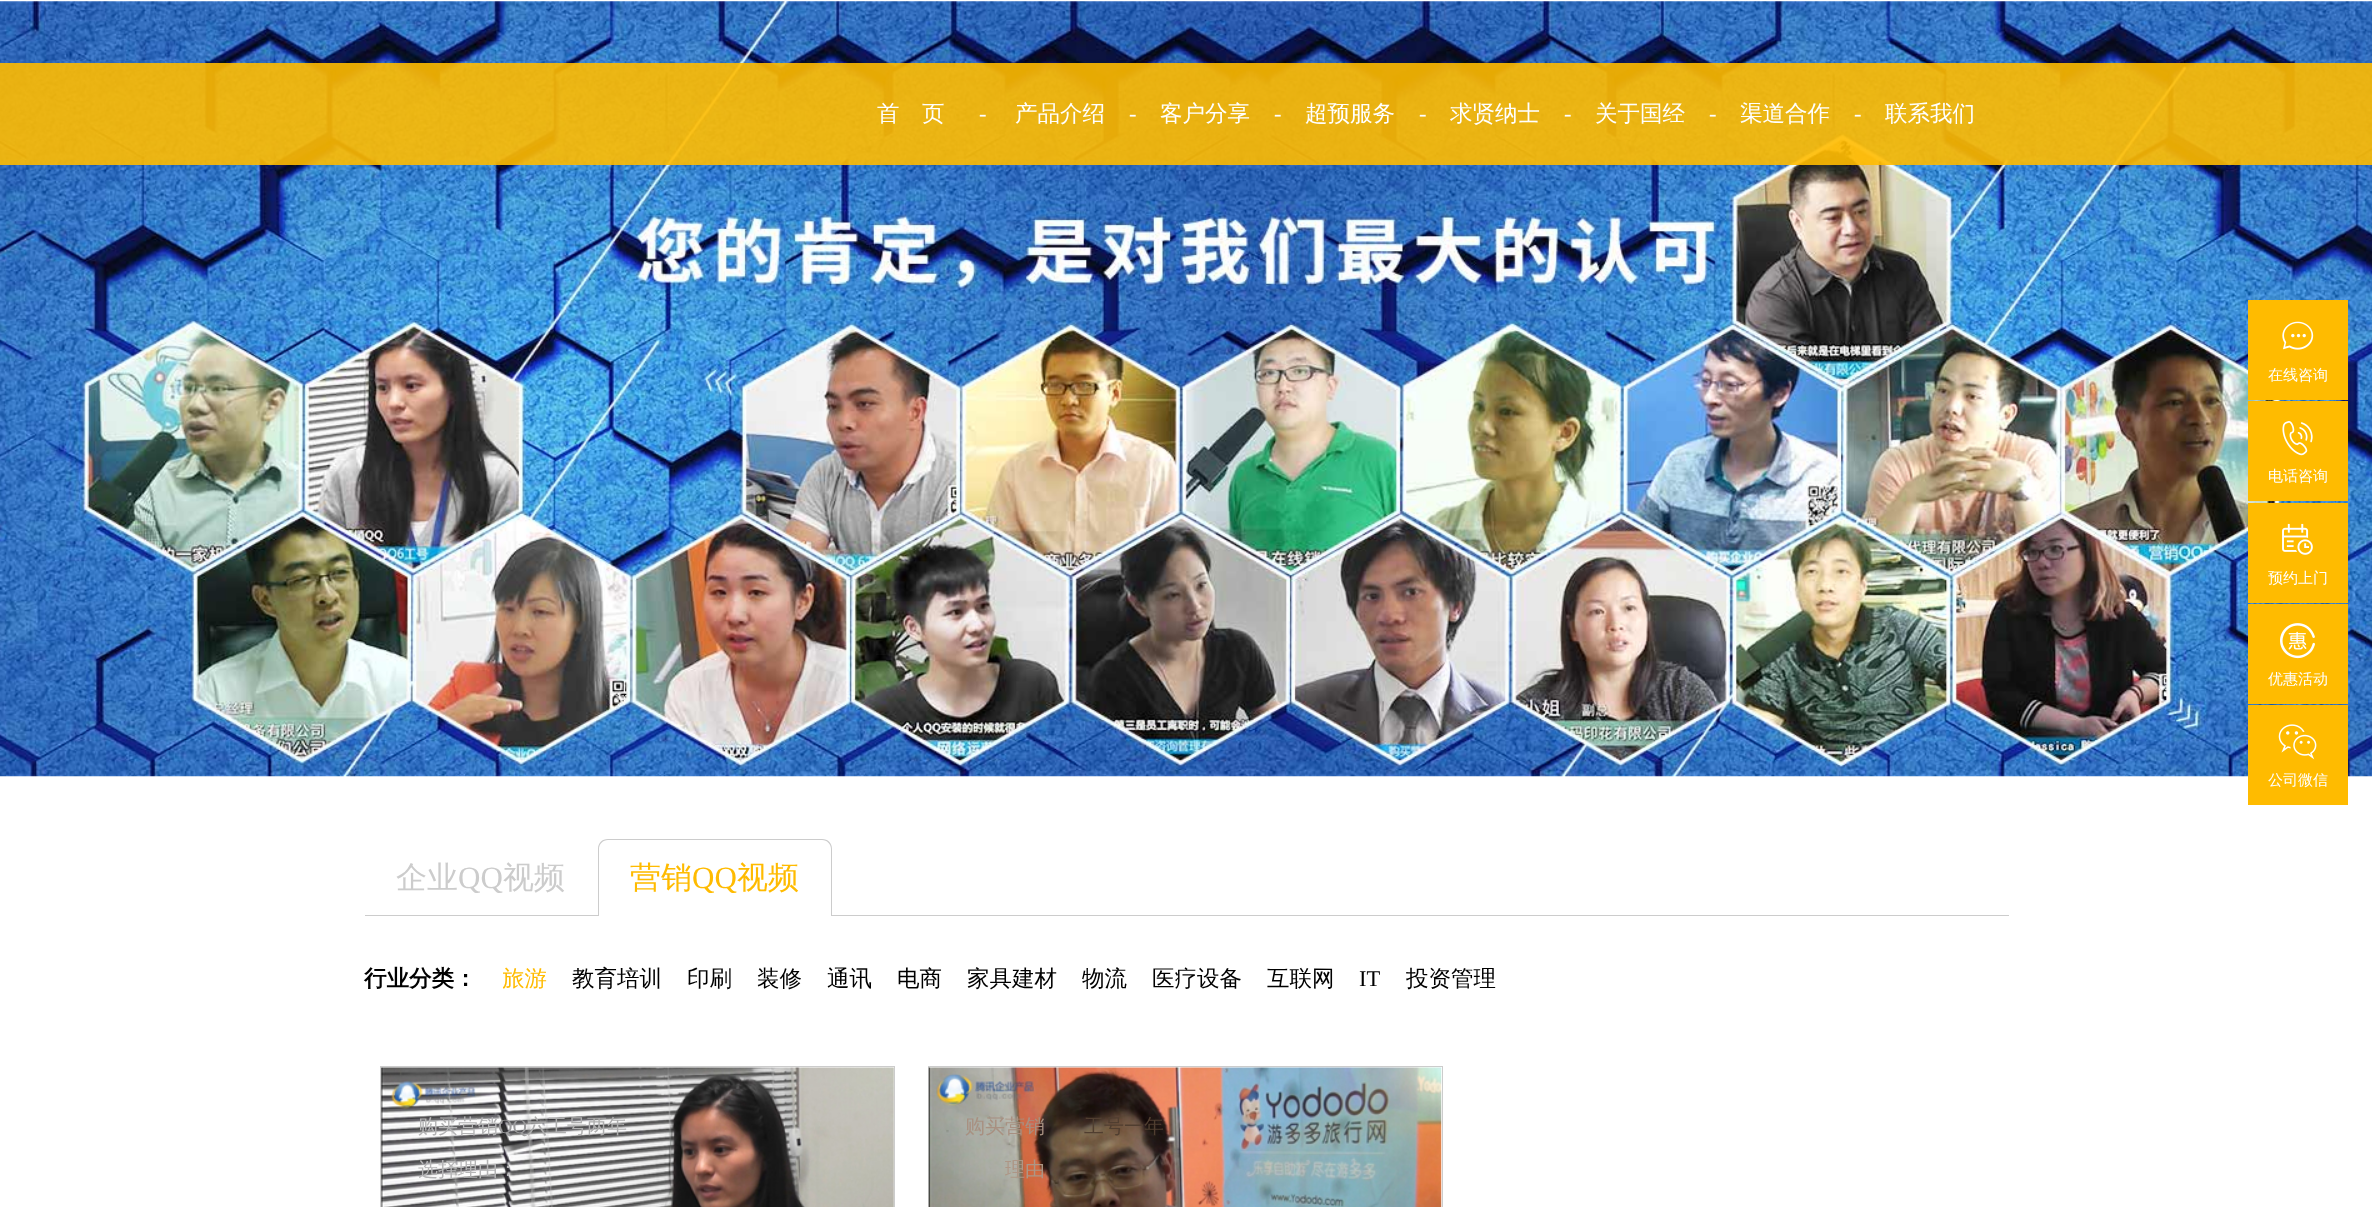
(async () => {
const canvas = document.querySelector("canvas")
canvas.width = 2372
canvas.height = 1207
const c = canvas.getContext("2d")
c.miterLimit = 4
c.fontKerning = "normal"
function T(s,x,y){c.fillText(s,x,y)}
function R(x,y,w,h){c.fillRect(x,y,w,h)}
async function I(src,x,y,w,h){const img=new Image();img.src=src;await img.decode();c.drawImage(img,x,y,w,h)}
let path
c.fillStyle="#fff"
R(0,0,2372,1207)
await I("1.png",0,1,2372,776)
c.fillStyle="#ffbb00e6"
R(0,63,2372,102)
c.font="500 22.5px WenQuanYi Zen Hei"
c.fillStyle="#fff"
T("首　页",877,121)
c.font="22.5px Liberation Serif"
T("-",979,121)
c.font="500 22.5px WenQuanYi Zen Hei"
T("产品介绍",1015,121)
c.font="22.5px Liberation Serif"
T("-",1129,121)
c.font="500 22.5px WenQuanYi Zen Hei"
T("客户分享",1160,121)
c.font="22.5px Liberation Serif"
T("-",1274,121)
c.font="500 22.5px WenQuanYi Zen Hei"
T("超预服务",1305,121)
c.font="22.5px Liberation Serif"
T("-",1419,121)
c.font="500 22.5px WenQuanYi Zen Hei"
T("求贤纳士",1450,121)
c.font="22.5px Liberation Serif"
T("-",1564,121)
c.font="500 22.5px WenQuanYi Zen Hei"
T("关于国经",1595,121)
c.font="22.5px Liberation Serif"
T("-",1709,121)
c.font="500 22.5px WenQuanYi Zen Hei"
T("渠道合作",1740,121)
c.font="22.5px Liberation Serif"
T("-",1854,121)
c.font="500 22.5px WenQuanYi Zen Hei"
T("联系我们",1885,121)
c.fillStyle="#fb0"
R(2248,300,100,100)
await I("2.png",2282,321,32,29)
c.font="500 15px WenQuanYi Zen Hei"
c.fillStyle="#fff"
T("在线咨询",2268,380)
c.fillStyle="#fb0"
R(2248,401,100,100)
await I("3.png",2282,421,31,35)
c.fillStyle="#fff"
T("电话咨询",2268,481)
c.fillStyle="#fb0"
R(2248,503,100,100)
await I("4.png",2282,523,31,32)
c.fillStyle="#fff"
T("预约上门",2268,583)
c.fillStyle="#fb0"
R(2248,604,100,100)
await I("5.png",2280,623,35,36)
c.fillStyle="#fff"
T("优惠活动",2268,684)
c.fillStyle="#fb0"
R(2248,705,100,100)
await I("6.png",2278,724,39,36)
c.fillStyle="#fff"
T("公司微信",2268,785)
c.fillStyle="#ccc"
R(365,915,1644,1)
c.font="500 31px WenQuanYi Zen Hei"
T("企业",396,888)
c.font="31px Liberation Serif"
T("QQ",458,888)
c.font="500 31px WenQuanYi Zen Hei"
T("视频",503,888)
path = new Path2D("M608 839h214c6 0 10 4 10 10v66h-234v-66c0-6 4-10 10-10zm0 1h214c5 0 9 4 9 9v66h-232v-66c0-5 4-9 9-9z")
c.fill(path,"evenodd")
c.fillStyle="#fb0"
T("营销",630,888)
c.font="31px Liberation Serif"
T("QQ",692,888)
c.font="500 31px WenQuanYi Zen Hei"
T("视频",737,888)
c.fillStyle="#fff"
R(599,915,232,1)
c.font="bold 22.5px WenQuanYi Zen Hei"
c.fillStyle="#000"
T("行业分类：",364,986)
c.save()
c.beginPath()
c.rect(503,954,1506,50)
c.clip()
c.font="500 22.5px WenQuanYi Zen Hei"
c.fillStyle="#fb0"
T("旅游",502,986)
c.restore()
c.font="500 22.5px WenQuanYi Zen Hei"
T("教育培训",572,986)
T("印刷",687,986)
T("装修",757,986)
T("通讯",827,986)
T("电商",897,986)
T("家具建材",967,986)
T("物流",1082,986)
T("医疗设备",1152,986)
T("互联网",1267,986)
c.font="22.5px Liberation Serif"
T("IT",1359,986)
c.font="500 22.5px WenQuanYi Zen Hei"
T("投资管理",1406,986)
c.strokeStyle="#ccc"
c.strokeRect(380.5,1066.5,514,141)
await I("7.png",381,1067,513,140)
c.font="500 20px WenQuanYi Zen Hei"
c.fillStyle="#b4b4b5"
T("购买营销",418,1133)
c.font="20px Liberation Serif"
c.fillStyle="#9b9b9c"
T("QQ",498,1133)
c.font="500 20px WenQuanYi Zen Hei"
c.fillStyle="#aeaeae"
T("六工号两年",527,1133)
c.fillStyle="#b4b4b5"
T("选择理由：",418,1176)
c.strokeRect(928.5,1066.5,514,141)
await I("8.png",928,1067,514,140)
c.fillStyle="#a89081"
T("购买营销",965,1133)
c.fillStyle="#503e30"
T("工号一年",1084,1133)
c.fillStyle="#ad9686"
T("理由",1005,1176)
})()
